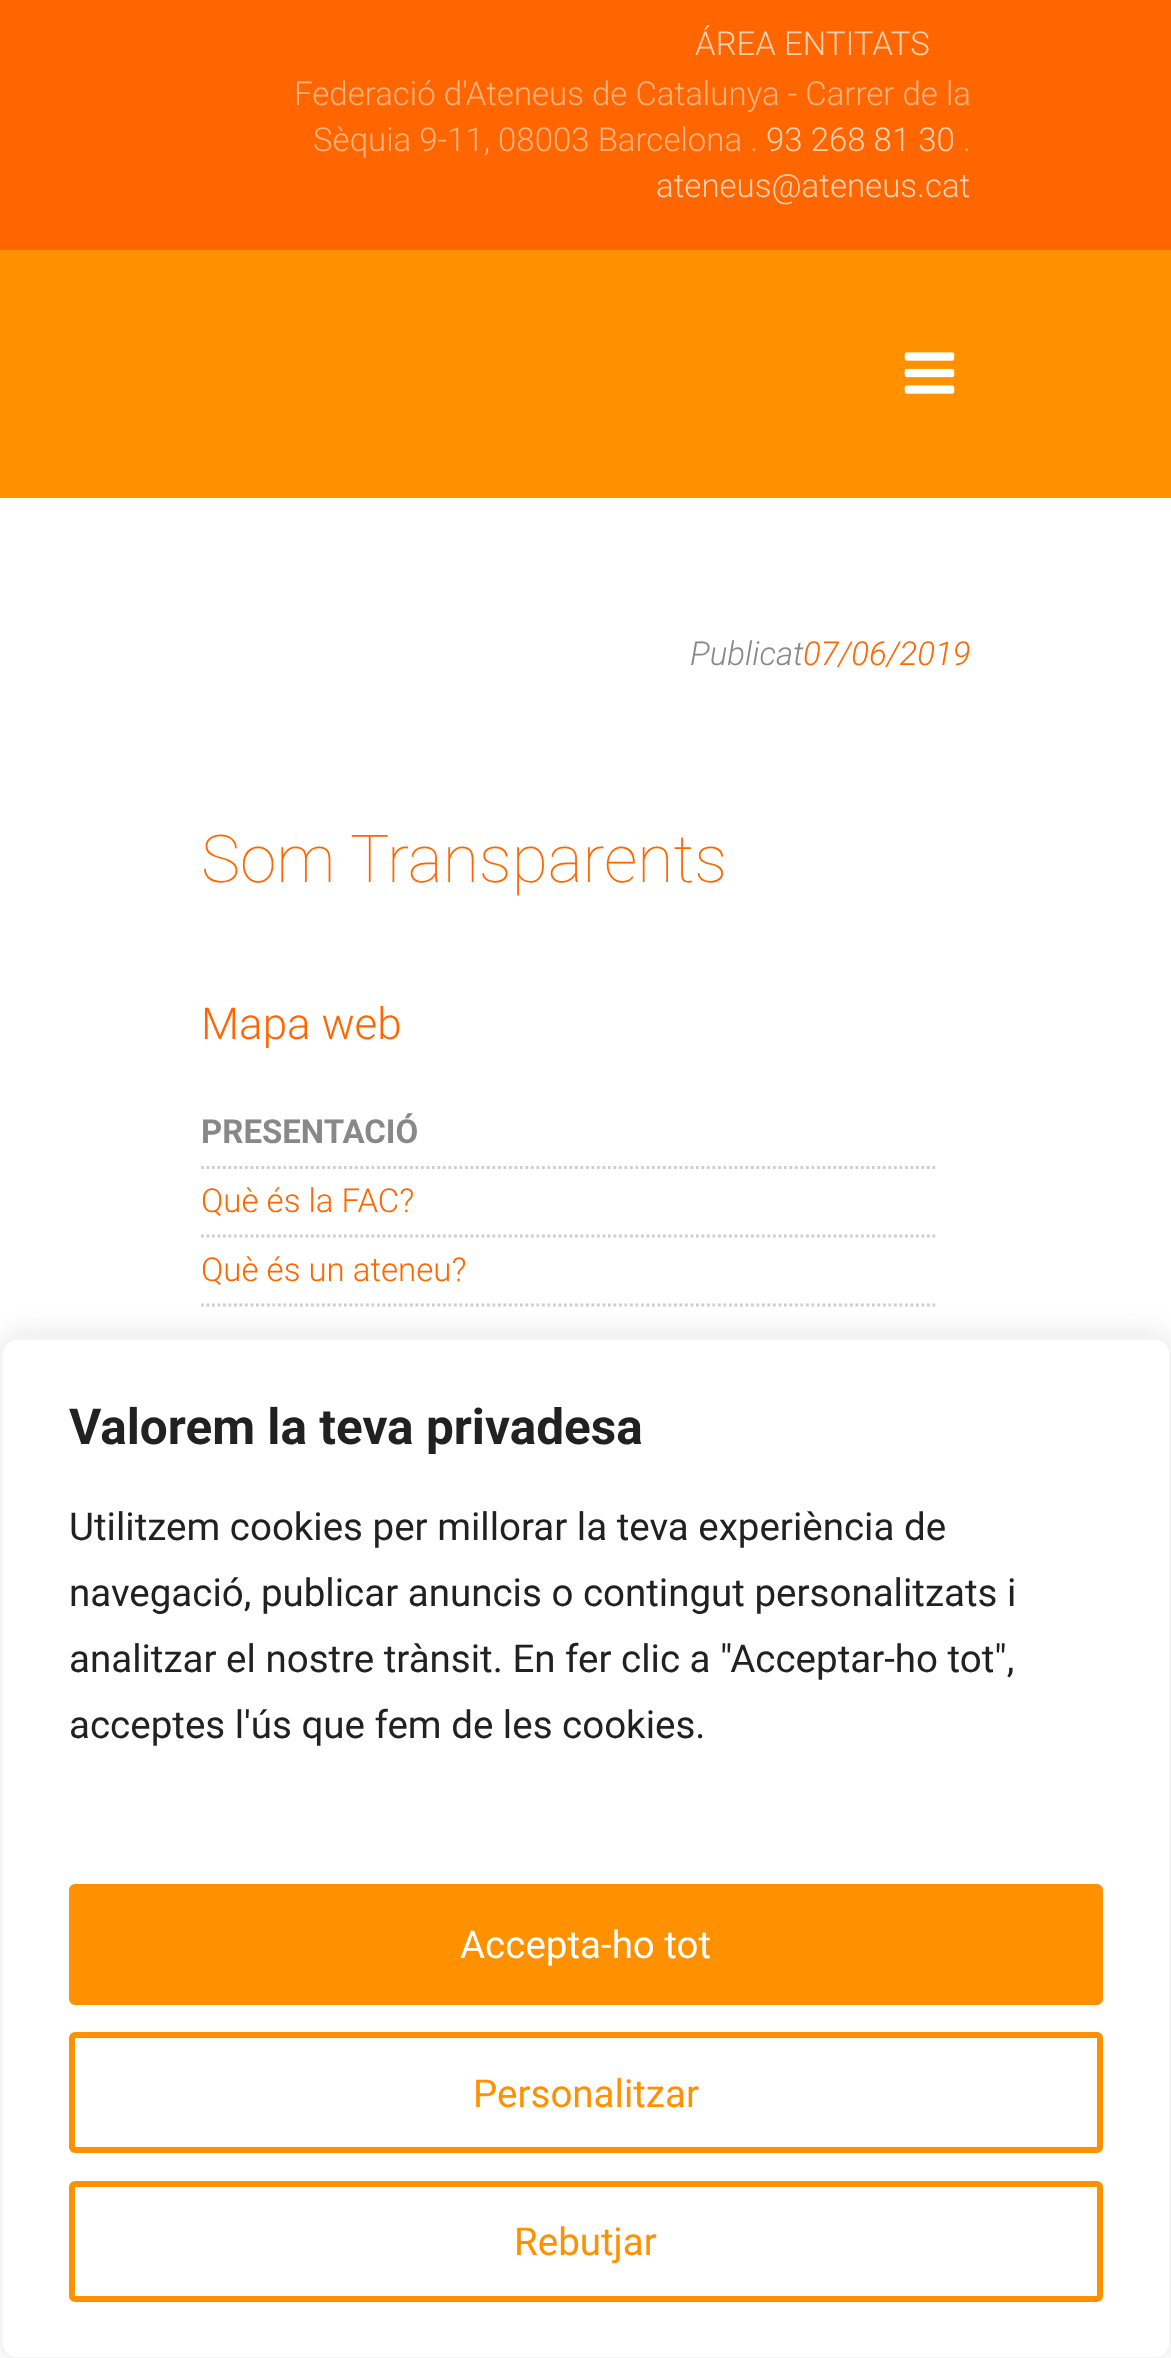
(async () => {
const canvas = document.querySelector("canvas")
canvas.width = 1171
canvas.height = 2358
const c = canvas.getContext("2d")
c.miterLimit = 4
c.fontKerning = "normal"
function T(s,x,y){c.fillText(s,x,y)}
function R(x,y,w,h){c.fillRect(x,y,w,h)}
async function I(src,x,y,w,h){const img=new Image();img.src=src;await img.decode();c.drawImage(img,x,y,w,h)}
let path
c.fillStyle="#fff"
R(0,0,1171,2358)
c.fillStyle="#ff9000"
R(0,250,1171,248)
c.fillStyle="#f60"
R(0,0,1171,250)
c.font="300 33px Roboto"
c.fillStyle="#ffd1b3"
T("ÁREA ENTITATS",695,55)
c.fillStyle="#ffb380"
T("Federació d'Ateneus de Catalunya - Carrer de la",294,105)
T("Sèquia 9-11, 08003 Barcelona .",313,151)
c.fillStyle="#ffd1b3"
T("93 268 81 30",766,151)
c.fillStyle="#ffb380"
T(".",963,151)
c.fillStyle="#ffd1b3"
T("ateneus@ateneus.cat",656,197)
await I("1.png",904,352,51,42)
c.font="italic 300 33px Roboto"
c.fillStyle="#888"
T("Publicat",690,665)
c.fillStyle="#f60"
T("07/06/2019",803,665)
c.font="100 66px Roboto"
T("Som Transparents",201,882)
c.font="300 44px Roboto"
T("Mapa web",201,1039)
c.font="bold 33px Roboto"
c.fillStyle="#888"
T("PRESENTACIÓ",201,1143)
path = new Path2D("M201 1167.5h737")
c.strokeStyle="#cecece"
c.lineWidth=2.8
c.setLineDash([2.75,2.75])
c.stroke(path)
c.font="300 33px Roboto"
c.fillStyle="#f60"
T("Què és la FAC?",201,1212)
path = new Path2D("M201 1236h737")
c.stroke(path)
T("Què és un ateneu?",201,1281)
path = new Path2D("M201 1305h737")
c.stroke(path)
c.fillStyle="#acabab4d"
c.filter="blur(14px)"
c.beginPath()
c.roundRect(0,1334,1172,1023,17)
c.fill()
c.filter="none"
c.fillStyle="#fff"
c.beginPath()
c.roundRect(1.5,1338.5,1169,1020,15.5)
c.fill()
c.strokeStyle="#f4f4f4"
c.lineWidth=3
c.setLineDash([])
c.stroke()
c.font="bold 49.5px Roboto"
c.fillStyle="#212121"
T("Valorem la teva privadesa",69,1444)
c.font="38.5px Roboto"
T("Utilitzem cookies per millorar la teva experiència de",69,1540)
T("navegació, publicar anuncis o contingut personalitzats i",69,1606)
T("analitzar el nostre trànsit. En fer clic a \"Acceptar-ho tot\",",69,1672)
T("acceptes l'ús que fem de les cookies.",69,1738)
c.fillStyle="#ff9000"
c.beginPath()
c.roundRect(72,1887,1028,115,3)
c.fill()
c.strokeStyle="#ff9000"
c.lineWidth=6
c.stroke()
c.fillStyle="#fff"
T("Accepta-ho tot",460,1958)
c.beginPath()
c.roundRect(72,2035,1028,115,3)
c.stroke()
c.fillStyle="#ff9000"
T("Personalitzar",473,2107)
c.beginPath()
c.roundRect(72,2184,1028,115,3)
c.stroke()
T("Rebutjar",514,2255)
})()
